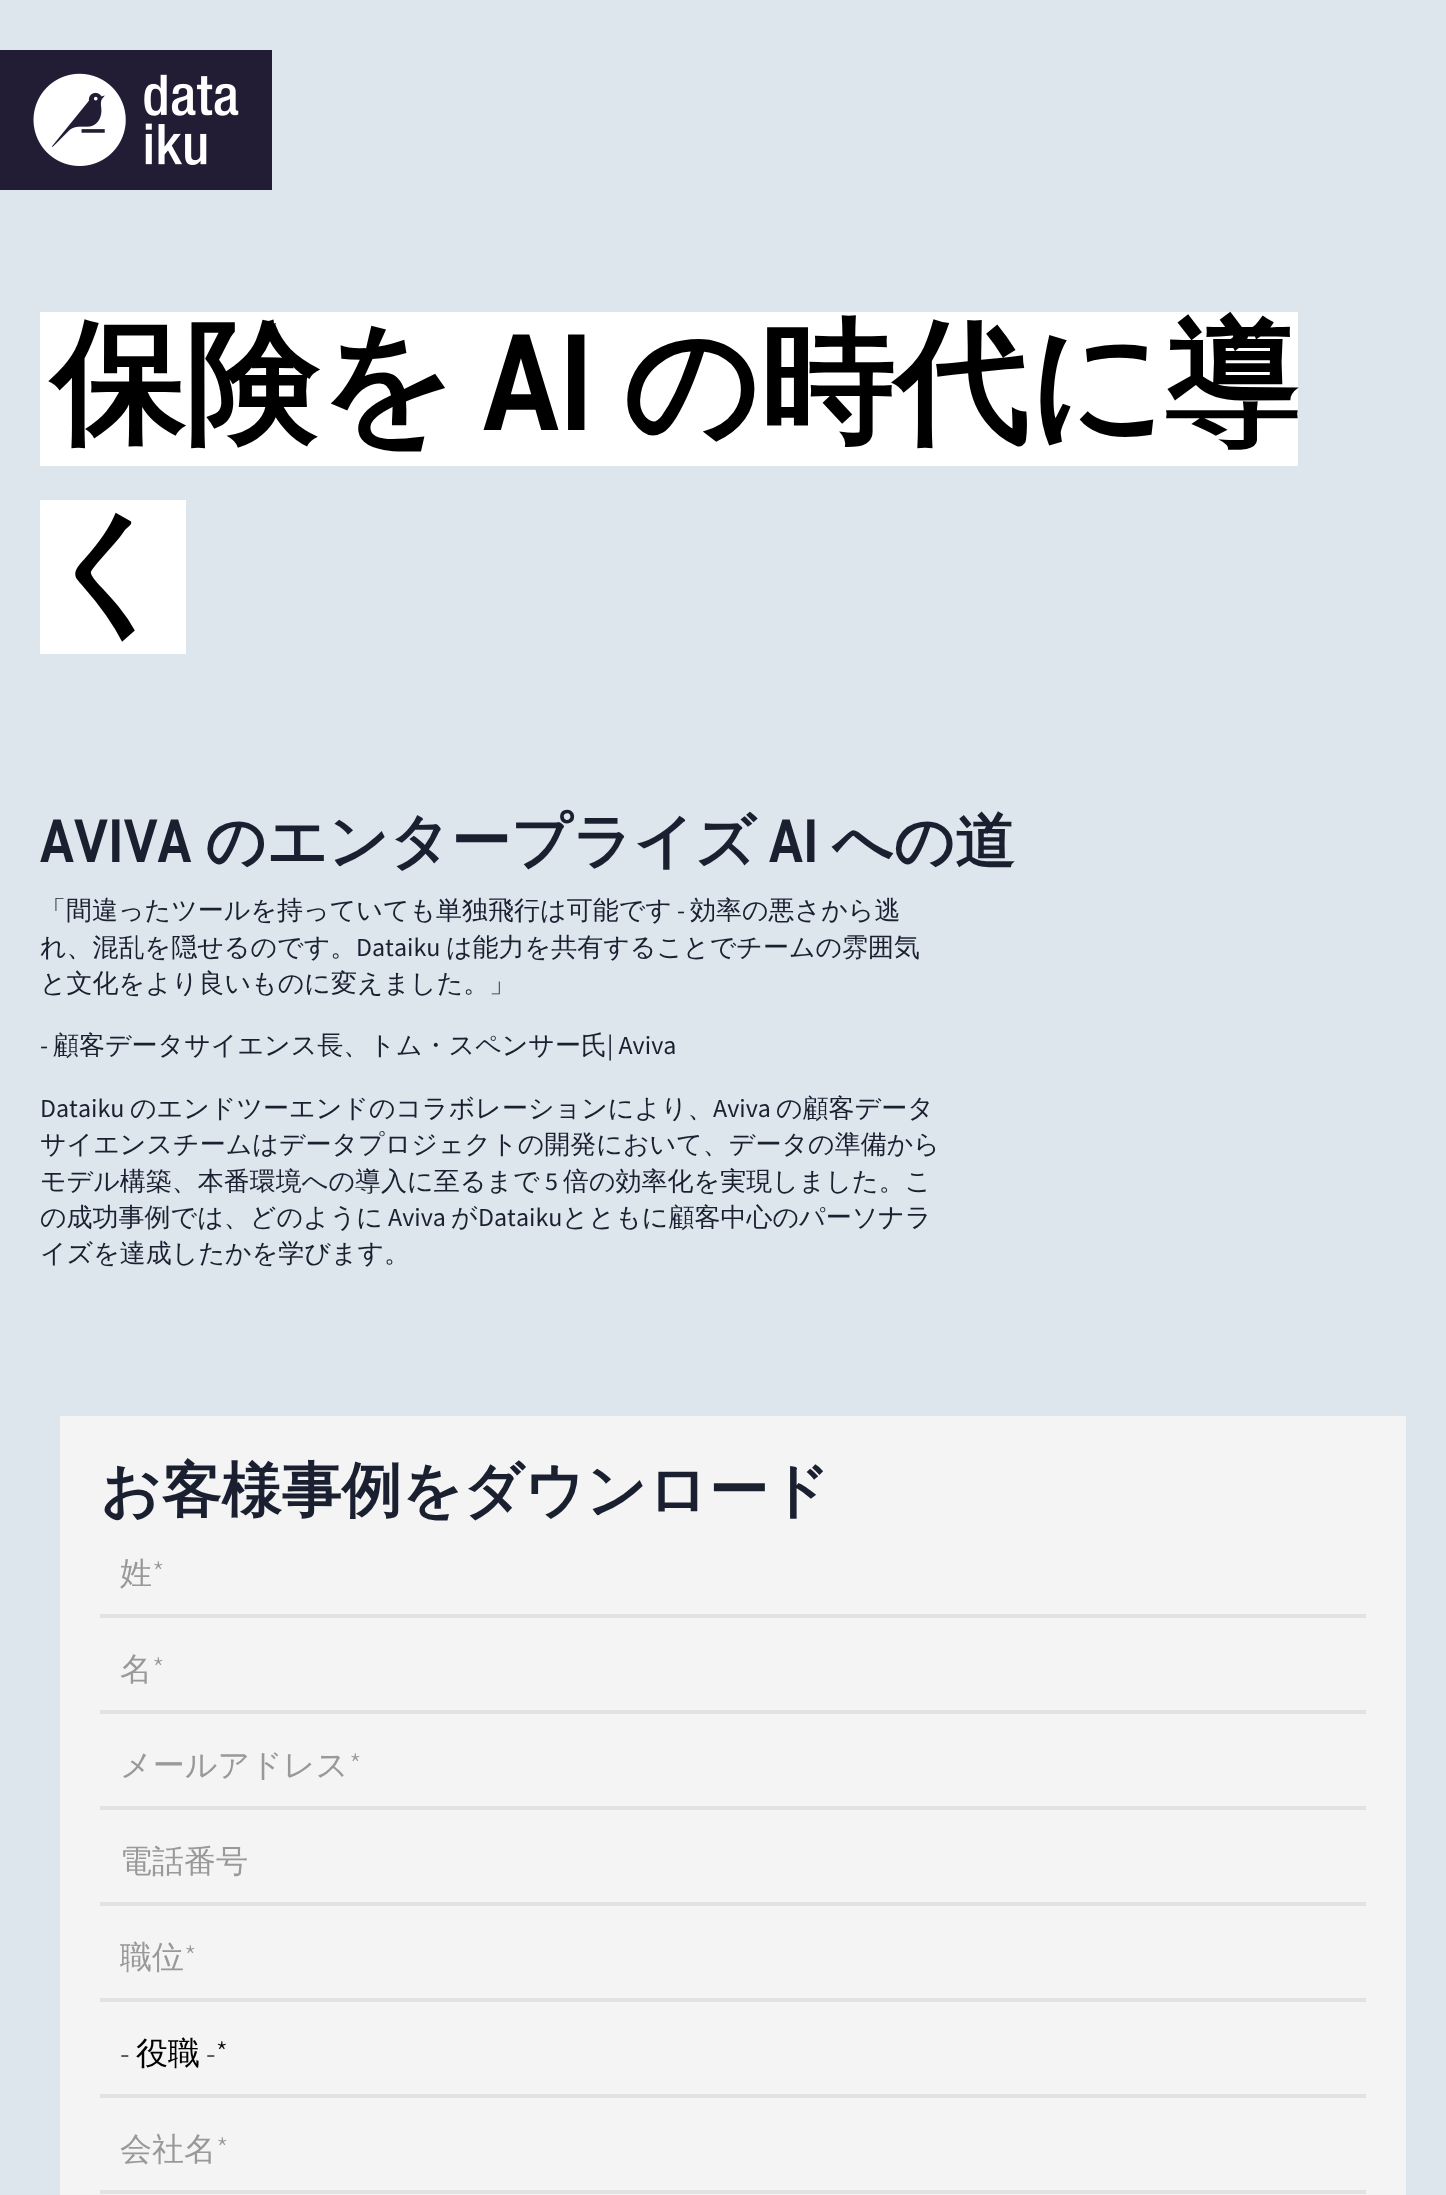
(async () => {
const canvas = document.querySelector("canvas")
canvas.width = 1446
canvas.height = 2195
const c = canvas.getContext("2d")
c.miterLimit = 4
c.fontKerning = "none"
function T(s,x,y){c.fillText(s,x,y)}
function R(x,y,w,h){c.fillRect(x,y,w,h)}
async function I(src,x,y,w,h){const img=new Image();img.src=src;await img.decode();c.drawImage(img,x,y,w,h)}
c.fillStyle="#dde6ed"
R(0,0,1446,2195)
c.fillStyle="#221c35"
R(0,50,272,140)
await I("1.png",33,73,206,93)
c.fillStyle="#fff"
R(40,312,1258,154)
c.letterSpacing="-0.5px"
c.font="bold 134.5px WenQuanYi Zen Hei"
c.fillStyle="#000"
T("保険を",50,430)
c.font="bold 134.5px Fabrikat"
T("AI",483,430)
c.font="bold 134.5px WenQuanYi Zen Hei"
T("の時代に導",622,430)
c.fillStyle="#fff"
R(40,500,146,154)
c.fillStyle="#000"
T("く",40,618)
c.letterSpacing="0px"
c.font="bold 60px Fabrikat"
c.fillStyle="#1b2031"
T("AVIVA",40,862)
c.font="bold 60px WenQuanYi Zen Hei"
T("のエンタープライズ",205,862)
c.font="bold 60px Fabrikat"
T("AI",769,862)
c.font="bold 60px WenQuanYi Zen Hei"
T("への道",832,862)
c.font="500 26px WenQuanYi Zen Hei"
T("「間違ったツールを持っていても単独飛行は可能です",40,919)
c.font="26px Source Sans Pro"
T("-",677,919)
c.font="500 26px WenQuanYi Zen Hei"
T("効率の悪さから逃",690,919)
T("れ、混乱を隠せるのです。",40,956)
c.font="26px Source Sans Pro"
T("Dataiku",356,956)
c.font="500 26px WenQuanYi Zen Hei"
T("は能力を共有することでチームの雰囲気",446,956)
T("と文化をより良いものに変えました。」",40,992)
c.font="26px Source Sans Pro"
T("-",40,1054)
c.font="500 26px WenQuanYi Zen Hei"
T("顧客データサイエンス長、トム・スペンサー氏",53,1054)
c.font="26px Source Sans Pro"
T("| Aviva",607,1054)
T("Dataiku",40,1117)
c.font="500 26px WenQuanYi Zen Hei"
T("のエンドツーエンドのコラボレーションにより、",130,1117)
c.font="26px Source Sans Pro"
T("Aviva",713,1117)
c.font="500 26px WenQuanYi Zen Hei"
T("の顧客データ",776,1117)
T("サイエンスチームはデータプロジェクトの開発において、データの準備から",40,1153)
T("モデル構築、本番環境への導入に至るまで",40,1190)
c.font="26px Source Sans Pro"
T("5",545,1190)
c.font="500 26px WenQuanYi Zen Hei"
T("倍の効率化を実現しました。こ",563,1190)
T("の成功事例では、どのように",40,1226)
c.font="26px Source Sans Pro"
T("Aviva",388,1226)
c.font="500 26px WenQuanYi Zen Hei"
T("が",451,1226)
c.font="26px Source Sans Pro"
T("Dataiku",478,1226)
c.font="500 26px WenQuanYi Zen Hei"
T("とともに顧客中心のパーソナラ",562,1226)
T("イズを達成したかを学びます。",40,1262)
c.fillStyle="#f4f4f4"
R(60,1416,1346,779)
c.font="bold 60px WenQuanYi Zen Hei"
c.fillStyle="#1b2031"
T("お客様事例をダウンロード",100,1511)
c.fillStyle="#e2e2e2"
R(100,1614,1266,4)
c.font="500 32px WenQuanYi Zen Hei"
c.fillStyle="#999"
T("姓",120,1584)
c.font="300 32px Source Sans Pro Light"
T("*",152,1584)
c.fillStyle="#e2e2e2"
R(100,1710,1266,4)
c.font="500 32px WenQuanYi Zen Hei"
c.fillStyle="#999"
T("名",120,1680)
c.font="300 32px Source Sans Pro Light"
T("*",152,1680)
c.fillStyle="#e2e2e2"
R(100,1806,1266,4)
c.font="500 32px WenQuanYi Zen Hei"
c.fillStyle="#999"
T("メールアドレス",120,1776)
c.font="300 32px Source Sans Pro Light"
T("*",349,1776)
c.fillStyle="#e2e2e2"
R(100,1902,1266,4)
c.font="500 32px WenQuanYi Zen Hei"
c.fillStyle="#999"
T("電話番号",120,1872)
c.fillStyle="#e2e2e2"
R(100,1998,1266,4)
c.fillStyle="#999"
T("職位",120,1968)
c.font="300 32px Source Sans Pro Light"
T("*",184,1968)
c.fillStyle="#e2e2e2"
R(100,2094,1266,4)
c.fillStyle="#000"
T("-",120,2064)
c.font="500 32px WenQuanYi Zen Hei"
T("役職",136,2064)
c.font="300 32px Source Sans Pro Light"
T("-*",206,2064)
c.fillStyle="#e2e2e2"
R(100,2190,1266,4)
c.font="500 32px WenQuanYi Zen Hei"
c.fillStyle="#999"
T("会社名",120,2160)
c.font="300 32px Source Sans Pro Light"
T("*",216,2160)
})()
